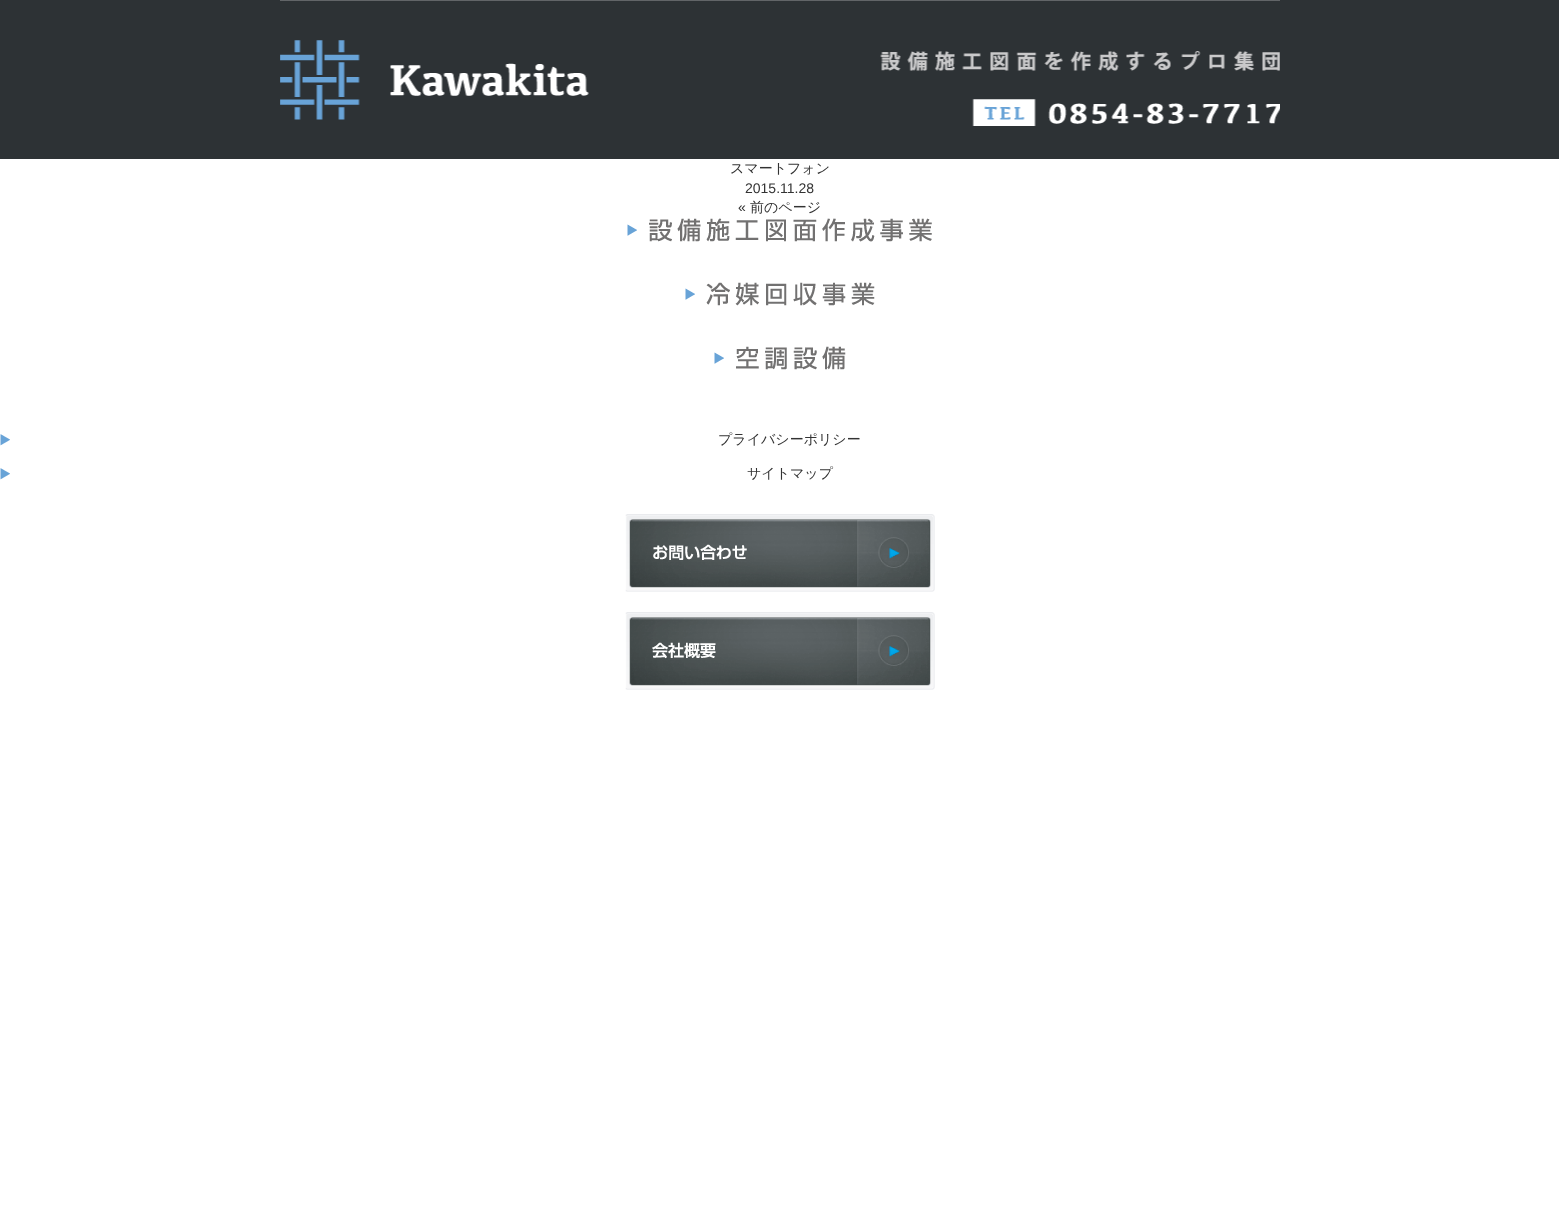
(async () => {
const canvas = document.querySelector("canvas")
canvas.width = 1559
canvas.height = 1208
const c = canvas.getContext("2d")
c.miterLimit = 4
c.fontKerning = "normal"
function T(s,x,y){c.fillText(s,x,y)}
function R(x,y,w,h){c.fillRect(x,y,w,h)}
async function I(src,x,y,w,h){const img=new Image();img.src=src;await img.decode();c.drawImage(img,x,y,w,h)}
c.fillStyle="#fff"
R(0,0,1559,1208)
c.fillStyle="#2d3235"
R(0,0,1559,159)
await I("1.png",280,0,1000,126)
c.font="500 14px WenQuanYi Zen Hei"
c.fillStyle="#333"
T("スマートフォン",730,173)
c.font="14px Liberation Sans"
T("2015.11.28",745,193)
T("«",738,212)
c.font="500 14px WenQuanYi Zen Hei"
T("前のページ",750,212)
await I("2.png",627,218,305,24)
await I("3.png",685,282,190,24)
await I("4.png",714,346,132,24)
await I("5.png",0,434,10,12)
T("プライバシーポリシー",718,444)
await I("5.png",0,468,10,12)
T("サイトマップ",747,478)
await I("6.png",625,514,310,78)
await I("7.png",625,612,310,78)
})()
